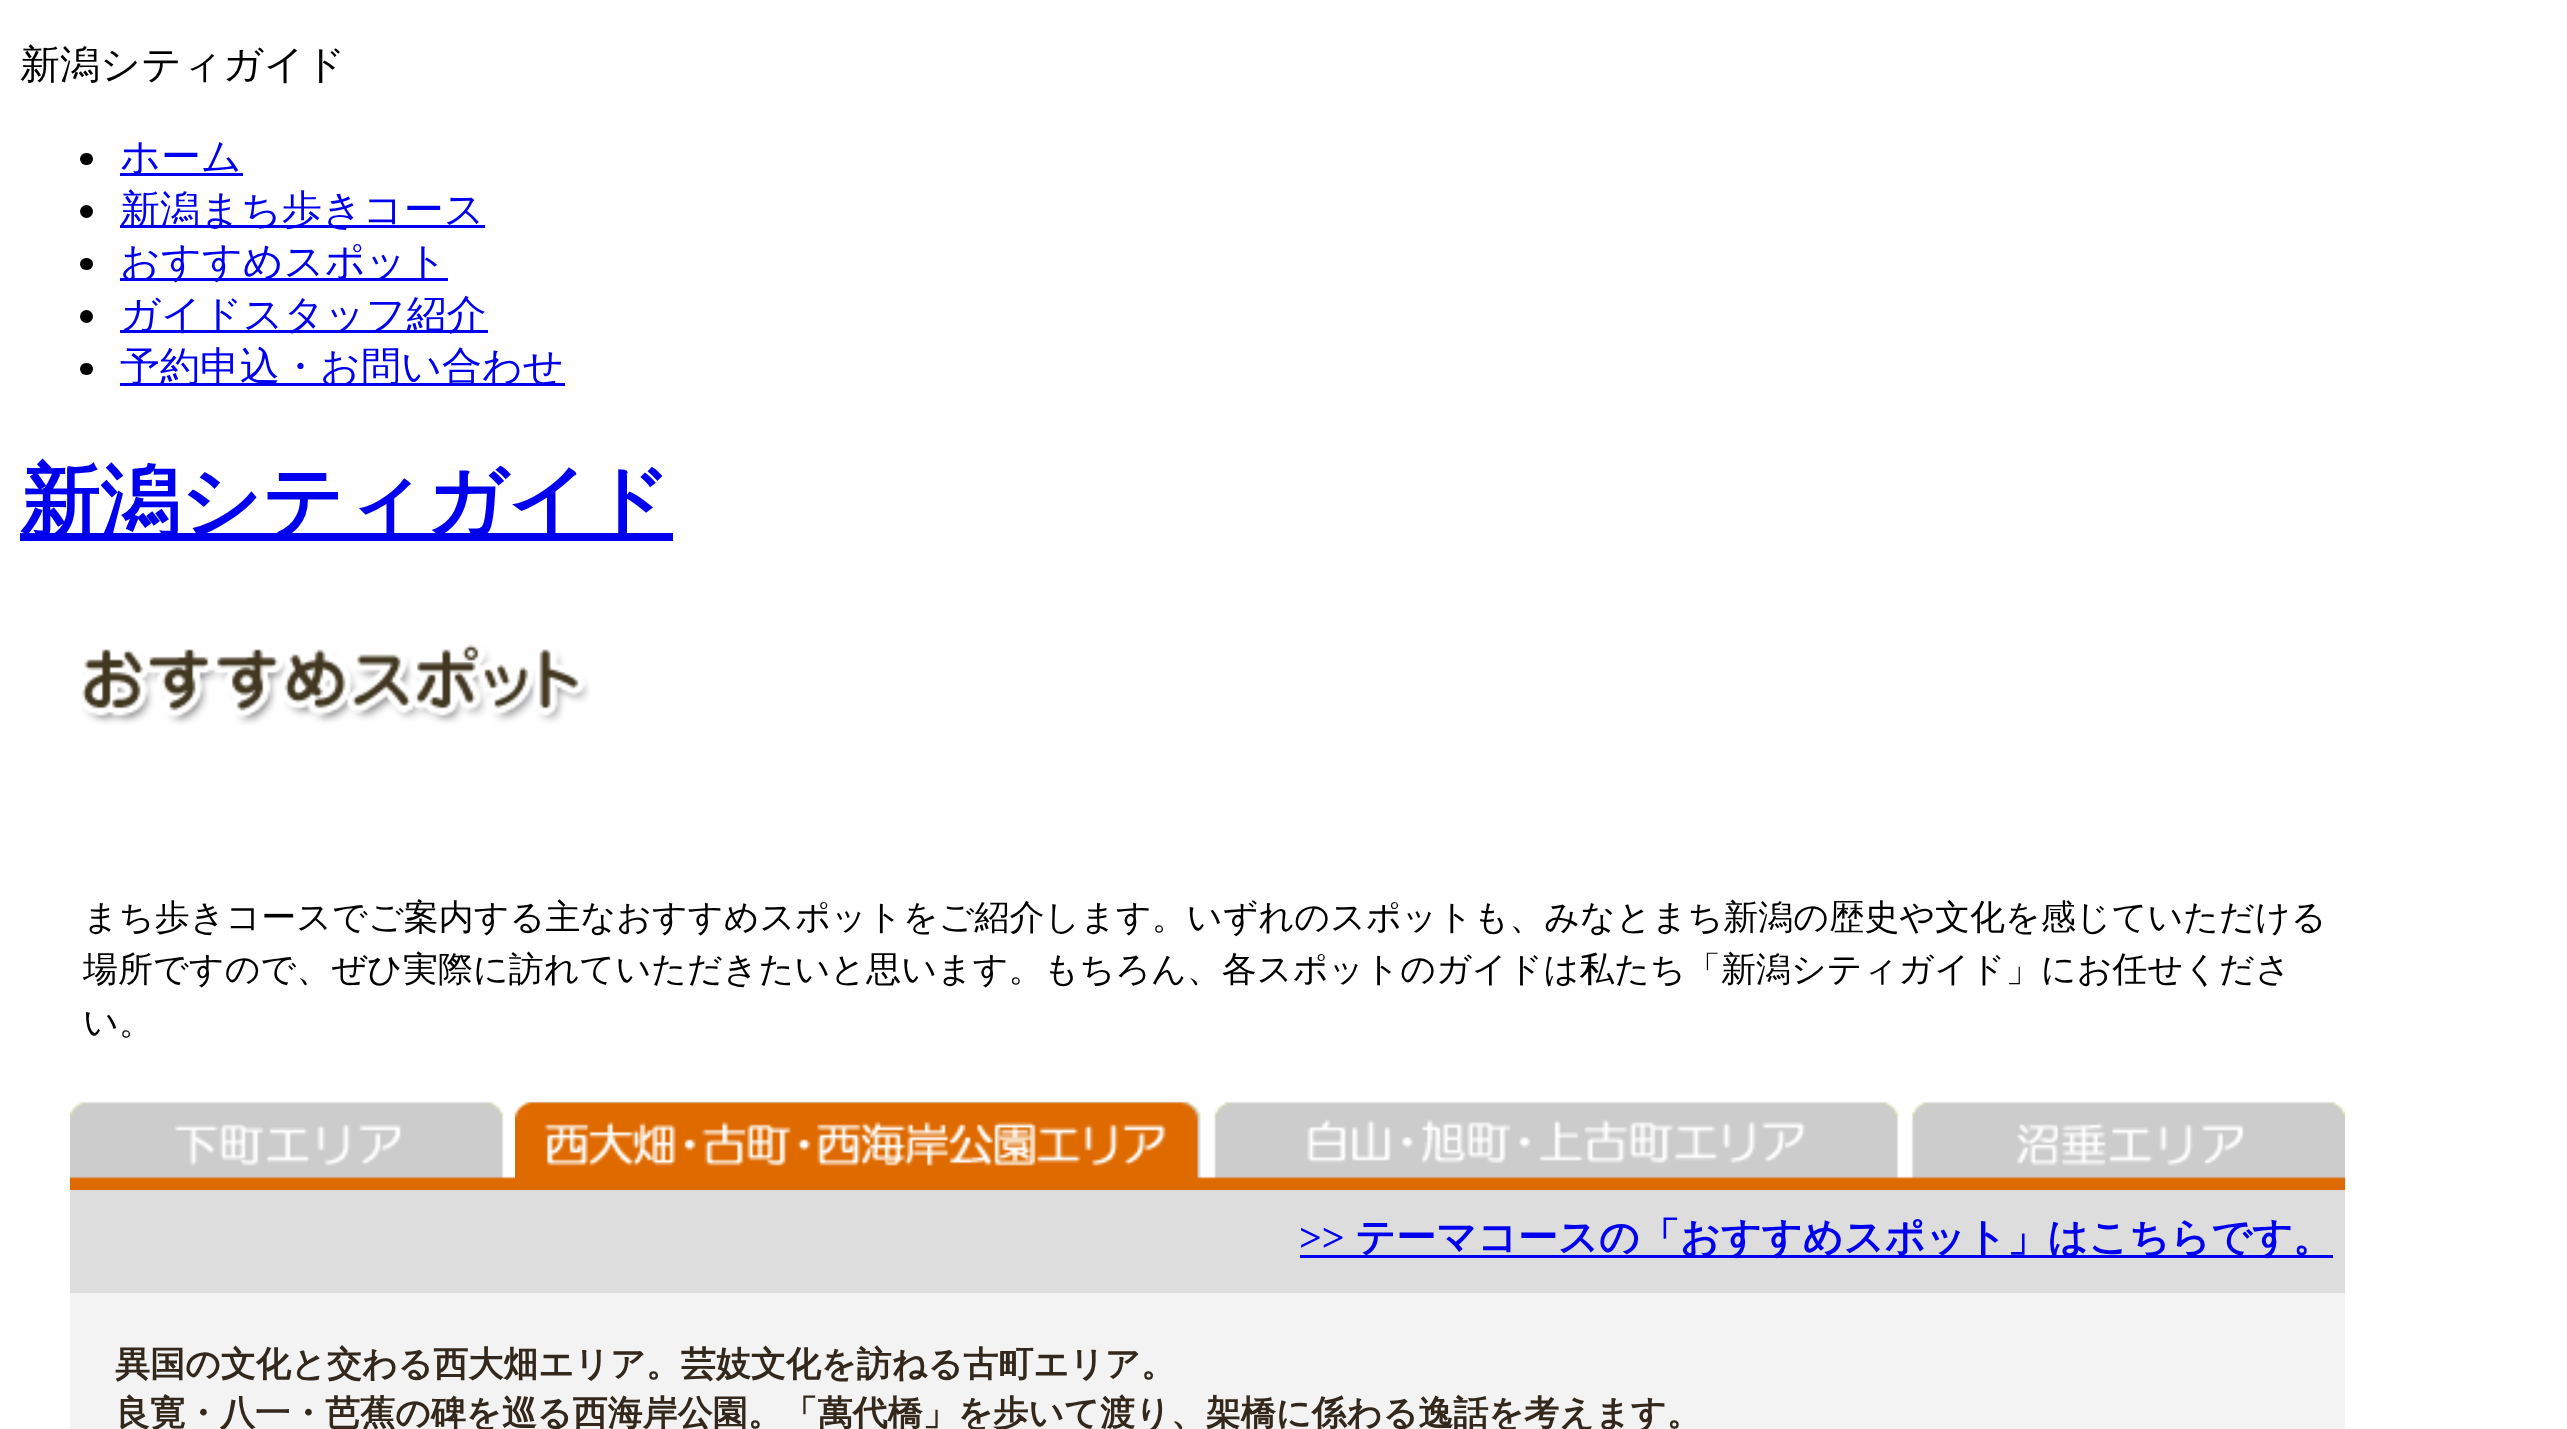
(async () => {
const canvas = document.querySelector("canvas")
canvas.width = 2567
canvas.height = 1429
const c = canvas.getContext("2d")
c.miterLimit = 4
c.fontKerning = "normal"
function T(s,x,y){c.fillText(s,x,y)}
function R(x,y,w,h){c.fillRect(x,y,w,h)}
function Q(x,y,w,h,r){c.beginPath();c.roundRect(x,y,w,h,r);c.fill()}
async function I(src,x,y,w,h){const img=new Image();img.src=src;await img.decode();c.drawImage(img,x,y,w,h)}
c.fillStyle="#fff"
R(0,0,2567,1429)
c.font="500 40px WenQuanYi Zen Hei"
c.fillStyle="#000"
T("新潟シティガイド",20,78)
Q(80,153,13,12,6)
c.fillStyle="#00e"
R(120,173,123,3)
T("ホーム",120,170)
c.fillStyle="#000"
c.beginPath()
c.arc(86.5,211.5,6.5,0,7)
c.fill()
c.fillStyle="#00e"
R(120,225,365,3)
T("新潟まち歩きコース",120,223)
c.fillStyle="#000"
Q(80,258,13,12,6)
c.fillStyle="#00e"
R(120,278,328,3)
T("おすすめスポット",120,275)
c.fillStyle="#000"
c.beginPath()
c.arc(86.5,316.5,6.5,0,7)
c.fill()
c.fillStyle="#00e"
R(120,330,368,3)
T("ガイドスタッフ紹介",120,328)
c.fillStyle="#000"
Q(80,363,13,12,6)
c.fillStyle="#00e"
R(120,383,445,3)
T("予約申込・お問い合わせ",120,380)
R(20,533,653,8)
c.font="bold 80px WenQuanYi Zen Hei"
T("新潟シティガイド",20,529)
await I("1.png",81,644,509,81)
c.font="500 35px WenQuanYi Zen Hei"
c.fillStyle="#000"
T("まち歩きコースでご案内する主なおすすめスポットをご紹介します。いずれのスポットも、みなとまち新潟の歴史や文化を感じていただける",83,929)
T("場所ですので、ぜひ実際に訪れていただきたいと思います。もちろん、各スポットのガイドは私たち「新潟シティガイド」にお任せくださ",83,981)
T("い。",83,1034)
await I("2.png",70,1101,2275,89)
await I("3.png",515,1101,683,78)
c.fillStyle="#ddd"
R(70,1190,2275,103)
c.font="bold 40px Liberation Serif"
c.fillStyle="#00e"
T(">>",1299,1251)
R(1300,1255,1033,3)
c.font="bold 40px WenQuanYi Zen Hei"
T("テーマコースの「おすすめスポット」はこちらです。",1355,1251)
c.fillStyle="#f3f3f3"
R(70,1293,2275,136)
c.font="bold 35px WenQuanYi Zen Hei"
c.fillStyle="#33281b"
T("異国の文化と交わる西大畑エリア。芸妓文化を訪ねる古町エリア。",115,1376)
T("良寛・八一・芭蕉の碑を巡る西海岸公園。「萬代橋」を歩いて渡り、架橋に係わる逸話を考えます。",115,1425)
})()
